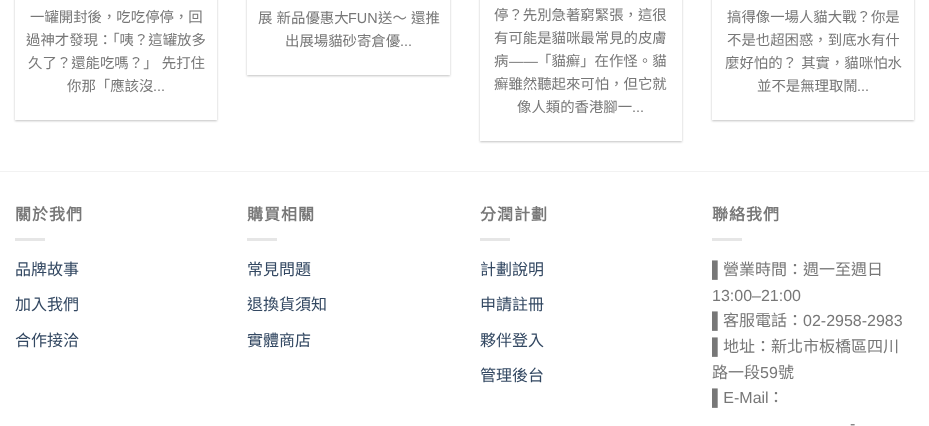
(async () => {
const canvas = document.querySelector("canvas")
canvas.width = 929
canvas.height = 426
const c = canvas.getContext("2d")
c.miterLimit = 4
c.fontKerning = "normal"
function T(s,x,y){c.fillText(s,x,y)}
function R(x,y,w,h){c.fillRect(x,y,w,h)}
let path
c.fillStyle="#fff"
R(0,0,929,426)
c.save()
path = new Path2D("M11 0h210v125h-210zm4-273h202v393h-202z")
c.clip(path,"evenodd")
c.fillStyle="#0000003d"
c.filter="blur(1px)"
c.beginPath()
c.rect(15,-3,202,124)
c.fill()
c.filter="none"
c.restore()
c.font="14.4px Noto Sans CJK TC"
c.fillStyle="#777"
T("一罐開封後，吃吃停停，回",30,22)
T("過神才發現：「咦？這罐放多",26,45)
c.wordSpacing="1px"
T("久了？還能吃嗎？」 先打住",28,68)
c.wordSpacing="0px"
T("你那「應該沒",67,91)
c.font="14.4px Liberation Sans"
T("...",153,91)
c.save()
path = new Path2D("M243 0h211v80h-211zm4-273h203v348h-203z")
c.clip(path,"evenodd")
c.fillStyle="#0000003d"
c.filter="blur(1px)"
c.beginPath()
c.rect(247,-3,203,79)
c.fill()
c.filter="none"
c.restore()
c.wordSpacing="1px"
c.font="14.4px Noto Sans CJK TC"
T("展 新品優惠大",258,23)
c.wordSpacing="0px"
c.font="14.4px Liberation Sans"
T("FUN",348,23)
c.wordSpacing="1px"
c.font="14.4px Noto Sans CJK TC"
T("送～ 還推",378,23)
c.wordSpacing="0px"
T("出展場貓砂寄倉優",285,46)
c.font="14.4px Liberation Sans"
T("...",400,46)
c.save()
path = new Path2D("M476 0h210v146h-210zm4-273h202v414h-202z")
c.clip(path,"evenodd")
c.fillStyle="#0000003d"
c.filter="blur(1px)"
c.beginPath()
c.rect(480,-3,202,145)
c.fill()
c.filter="none"
c.restore()
c.font="14.4px Noto Sans CJK TC"
T("停？先別急著窮緊張，這很",494,20)
T("有可能是貓咪最常見的皮膚",494,43)
T("病",494,66)
c.font="14.4px Liberation Sans"
T("——",509,66)
c.font="14.4px Noto Sans CJK TC"
T("「貓癬」在作怪。貓",537,66)
T("癬雖然聽起來可怕，但它就",494,89)
T("像人類的香港腳一",517,112)
c.font="14.4px Liberation Sans"
T("...",632,112)
c.save()
path = new Path2D("M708 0h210v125h-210zm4-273h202v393h-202z")
c.clip(path,"evenodd")
c.fillStyle="#0000003d"
c.filter="blur(1px)"
c.beginPath()
c.rect(712,-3,202,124)
c.fill()
c.filter="none"
c.restore()
c.font="14.4px Noto Sans CJK TC"
T("搞得像一場人貓大戰？你是",727,22)
T("不是也超困惑，到底水有什",727,45)
c.wordSpacing="1px"
T("麼好怕的？ 其實，貓咪怕水",725,68)
c.wordSpacing="0px"
T("並不是無理取鬧",757,91)
c.font="14.4px Liberation Sans"
T("...",857,91)
c.fillStyle="#f2f2f2"
R(0,171,929,1)
c.letterSpacing="1px"
c.font="bold 16px Noto Sans CJK TC"
c.fillStyle="#777"
T("關於我們",15,220)
c.fillStyle="#e6e6e6"
R(15,238,30,3)
c.letterSpacing="0px"
c.font="16px Noto Sans CJK TC"
c.fillStyle="#334862"
T("品牌故事",15,275)
T("加入我們",15,310)
T("合作接洽",15,346)
c.letterSpacing="1px"
c.font="bold 16px Noto Sans CJK TC"
c.fillStyle="#777"
T("購買相關",247,220)
c.fillStyle="#e6e6e6"
R(247,238,30,3)
c.letterSpacing="0px"
c.font="16px Noto Sans CJK TC"
c.fillStyle="#334862"
T("常見問題",247,275)
T("退換貨須知",247,310)
T("實體商店",247,346)
c.letterSpacing="1px"
c.font="bold 16px Noto Sans CJK TC"
c.fillStyle="#777"
T("分潤計劃",480,220)
c.fillStyle="#e6e6e6"
R(480,238,30,3)
c.letterSpacing="0px"
c.font="16px Noto Sans CJK TC"
c.fillStyle="#334862"
T("計劃說明",480,275)
T("申請註冊",480,310)
T("夥伴登入",480,346)
T("管理後台",480,381)
c.letterSpacing="1px"
c.font="bold 16px Noto Sans CJK TC"
c.fillStyle="#777"
T("聯絡我們",712,220)
c.fillStyle="#e6e6e6"
R(712,238,30,3)
c.letterSpacing="0px"
c.font="16px Liberation Sans"
c.fillStyle="#777"
T("▌",712,275)
c.font="16px Noto Sans CJK TC"
T("營業時間：週一至週日",723,275)
c.font="16px Liberation Sans"
T("13:00–21:00",712,301)
T("▌",712,326)
c.font="16px Noto Sans CJK TC"
T("客服電話：",723,326)
c.font="16px Liberation Sans"
T("02-2958-2983",803,326)
T("▌",712,352)
c.font="16px Noto Sans CJK TC"
T("地址：新北市板橋區四川",723,352)
T("路一段",712,378)
c.font="16px Liberation Sans"
T("59",760,378)
c.font="16px Noto Sans CJK TC"
T("號",778,378)
c.font="16px Liberation Sans"
T("▌E-Mail",712,403)
c.font="16px Noto Sans CJK TC"
T("：",768,403)
c.font="16px Liberation Sans"
T("-",850,429)
})()
